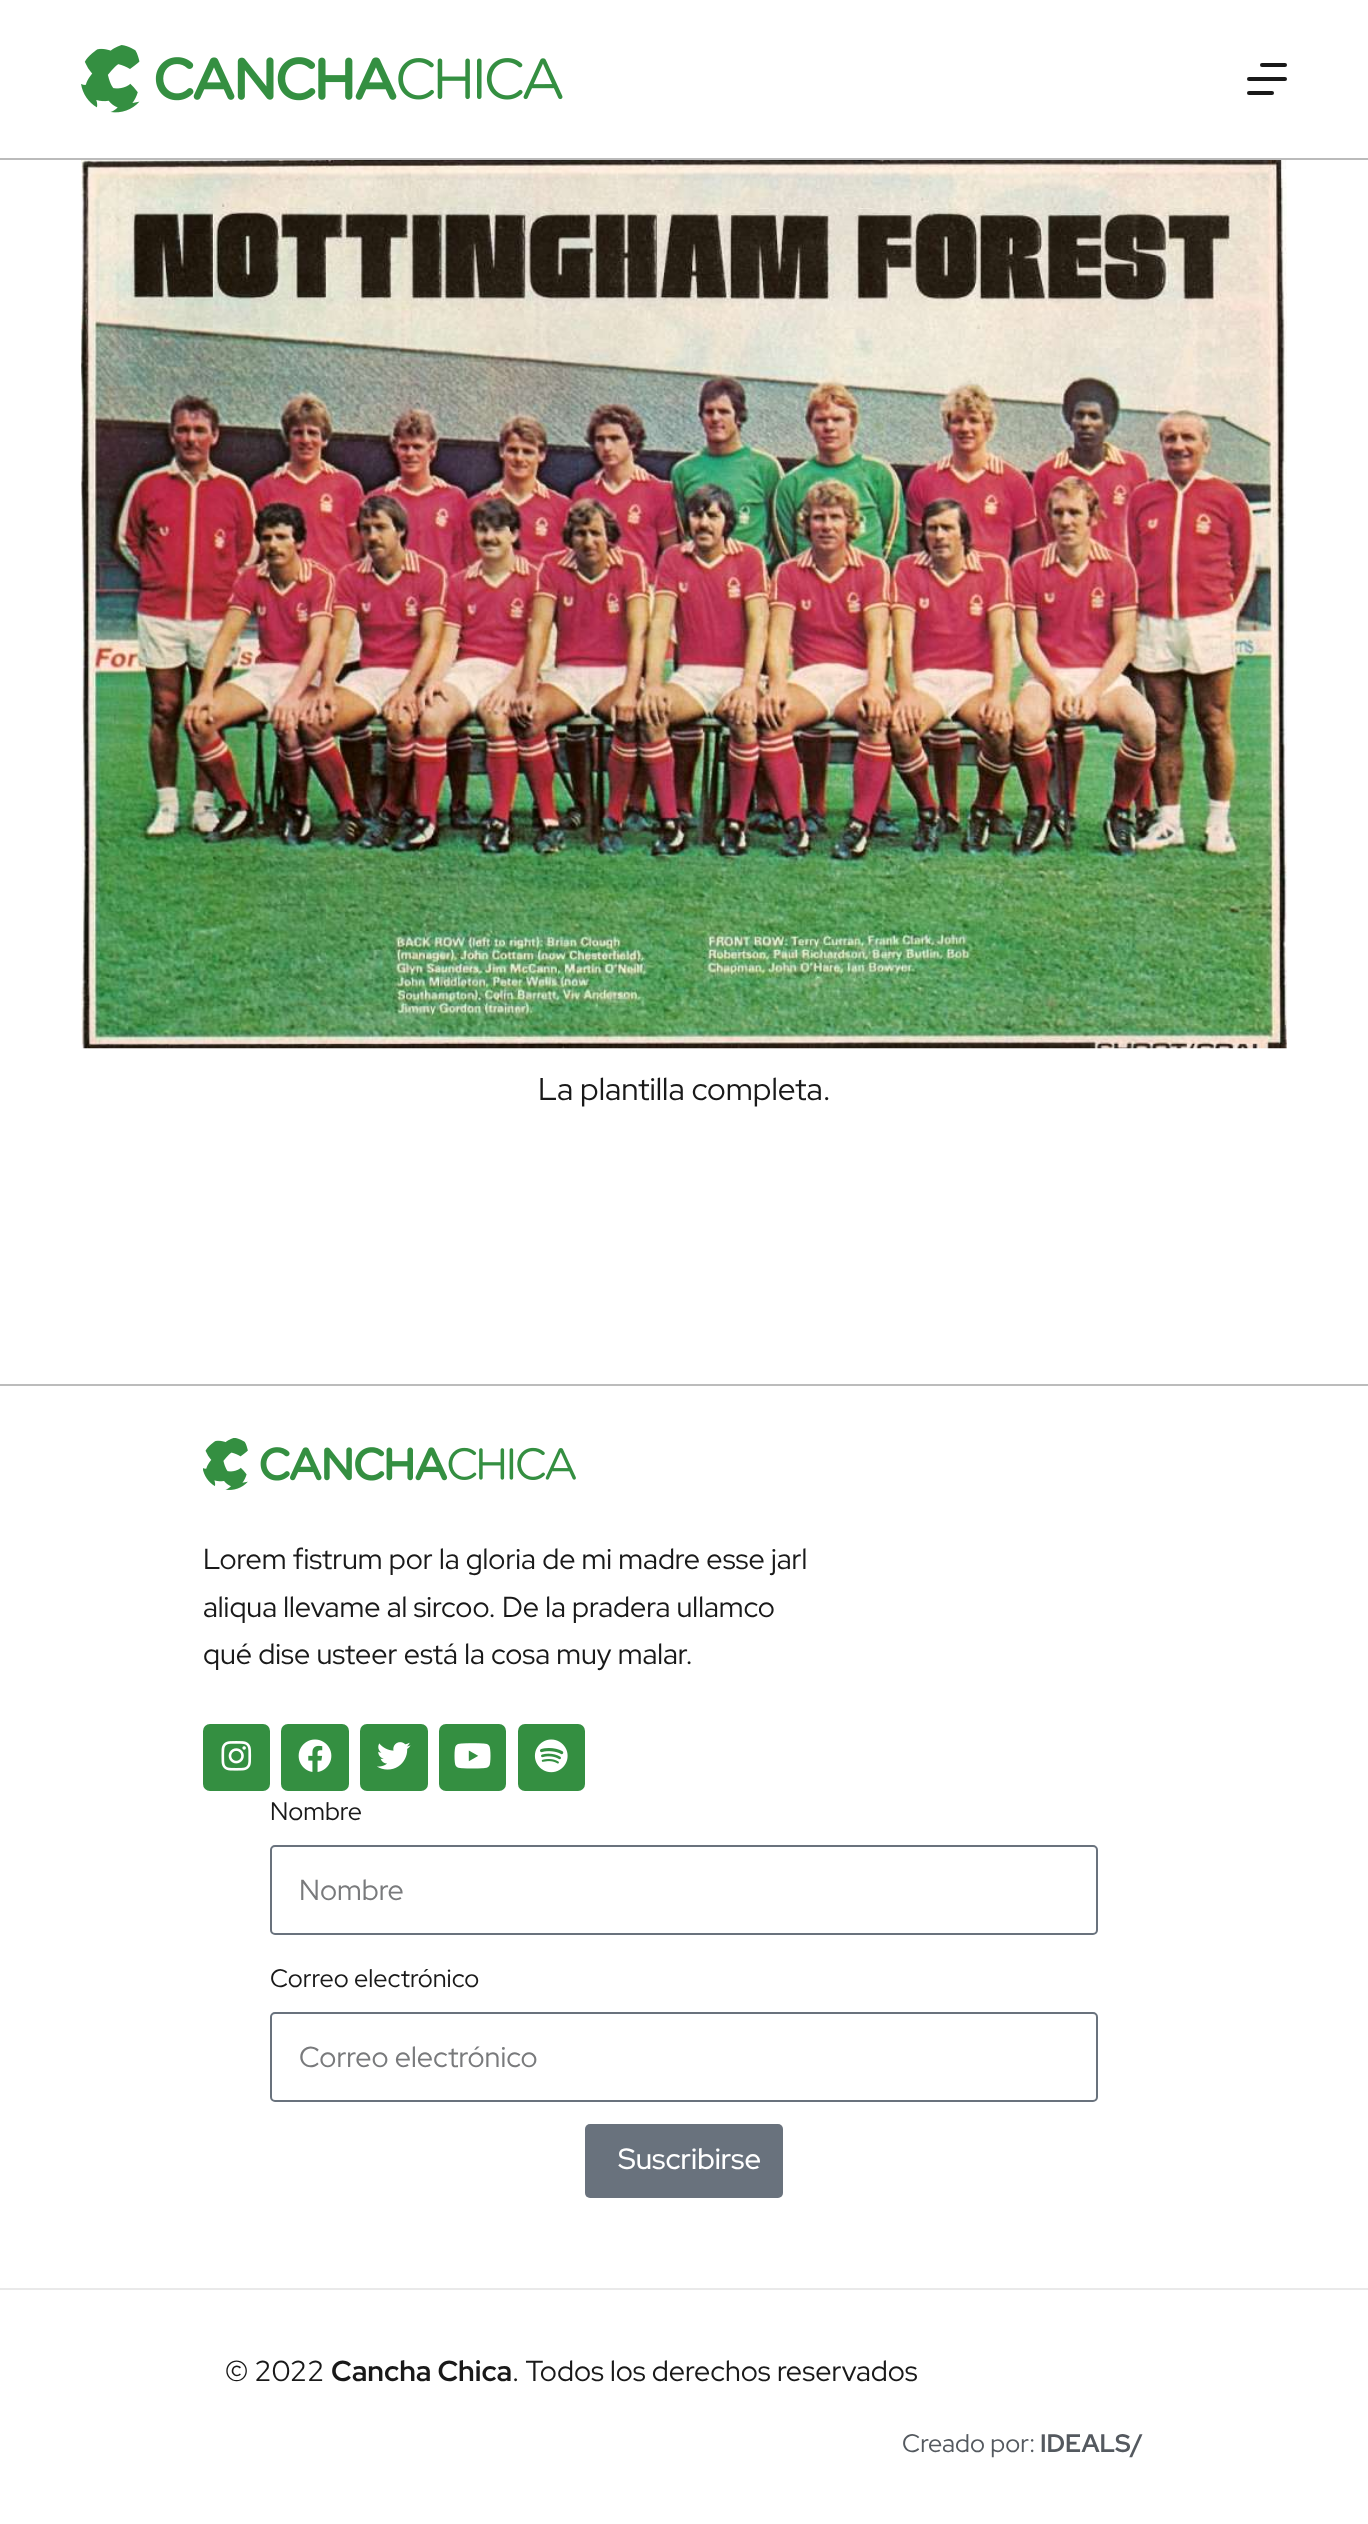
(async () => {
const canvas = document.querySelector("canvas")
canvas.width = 1368
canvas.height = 2524
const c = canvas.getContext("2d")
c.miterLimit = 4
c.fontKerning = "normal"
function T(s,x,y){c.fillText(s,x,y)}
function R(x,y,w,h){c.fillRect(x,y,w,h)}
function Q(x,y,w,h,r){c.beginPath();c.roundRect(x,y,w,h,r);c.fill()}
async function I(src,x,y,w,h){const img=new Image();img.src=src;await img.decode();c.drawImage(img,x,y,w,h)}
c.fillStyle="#fff"
R(0,0,1368,2524)
c.fillStyle="#bbb"
R(0,158,1368,2)
await I("1.png",81,45,482,68)
c.fillStyle="#191919"
Q(1260,63,27,4,2)
Q(1247,77,40,4,2)
Q(1247,91,27,4,2)
await I("2.png",81,160,1206,889)
c.font="31.5px Red Hat Display"
T("La plantilla completa.",538,1100)
c.fillStyle="#bcbcbc"
R(0,1384,1368,2)
await I("3.png",203,1438,373,52)
c.font="28.8px Red Hat Display"
c.fillStyle="#191919"
T("Lorem fistrum por la gloria de mi madre esse jarl",203,1569)
T("aliqua llevame al sircoo. De la pradera ullamco",203,1617)
T("qué dise usteer está la cosa muy malar.",203,1664)
c.fillStyle="#348f41"
Q(203,1724,67,67,7)
await I("4.png",221,1741,31,30)
Q(281,1724,68,67,7)
await I("5.png",298,1739,34,33)
Q(360,1724,68,67,7)
await I("6.png",377,1742,34,28)
Q(439,1724,67,67,7)
await I("7.png",454,1743,37,26)
Q(518,1724,67,67,7)
await I("8.png",534,1739,34,34)
c.font="25.25px Red Hat Display"
c.fillStyle="#191919"
T("Nombre",270,1820)
c.beginPath()
c.roundRect(271,1846,826,88,4)
c.strokeStyle="#69727d"
c.lineWidth=2
c.stroke()
c.font="28.8px Red Hat Display"
c.fillStyle="#797a7c"
T("Nombre",299,1900)
c.font="25.25px Red Hat Display"
c.fillStyle="#191919"
T("Correo electrónico",270,1987)
c.beginPath()
c.roundRect(271,2013,826,88,4)
c.stroke()
c.font="28.8px Red Hat Display"
c.fillStyle="#797a7c"
T("Correo electrónico",299,2067)
c.fillStyle="#69727d"
Q(585,2124,198,74,5)
c.font="500 29.25px Red Hat Display"
c.fillStyle="#fff"
T("Suscribirse",618,2169)
c.fillStyle="#e9e9e9"
R(0,2288,1368,2)
c.font="28.8px Red Hat Display"
c.fillStyle="#191919"
T("© 2022",225,2381)
c.font="bold 28.8px Red Hat Display"
T("Cancha Chica",331,2381)
c.font="28.8px Red Hat Display"
T(". Todos los derechos reservados",512,2381)
c.font="25.25px Red Hat Display"
c.fillStyle="#54595f"
T("Creado por:",902,2452)
c.font="bold 25.25px Red Hat Display"
T("IDEALS/",1040,2452)
})()
